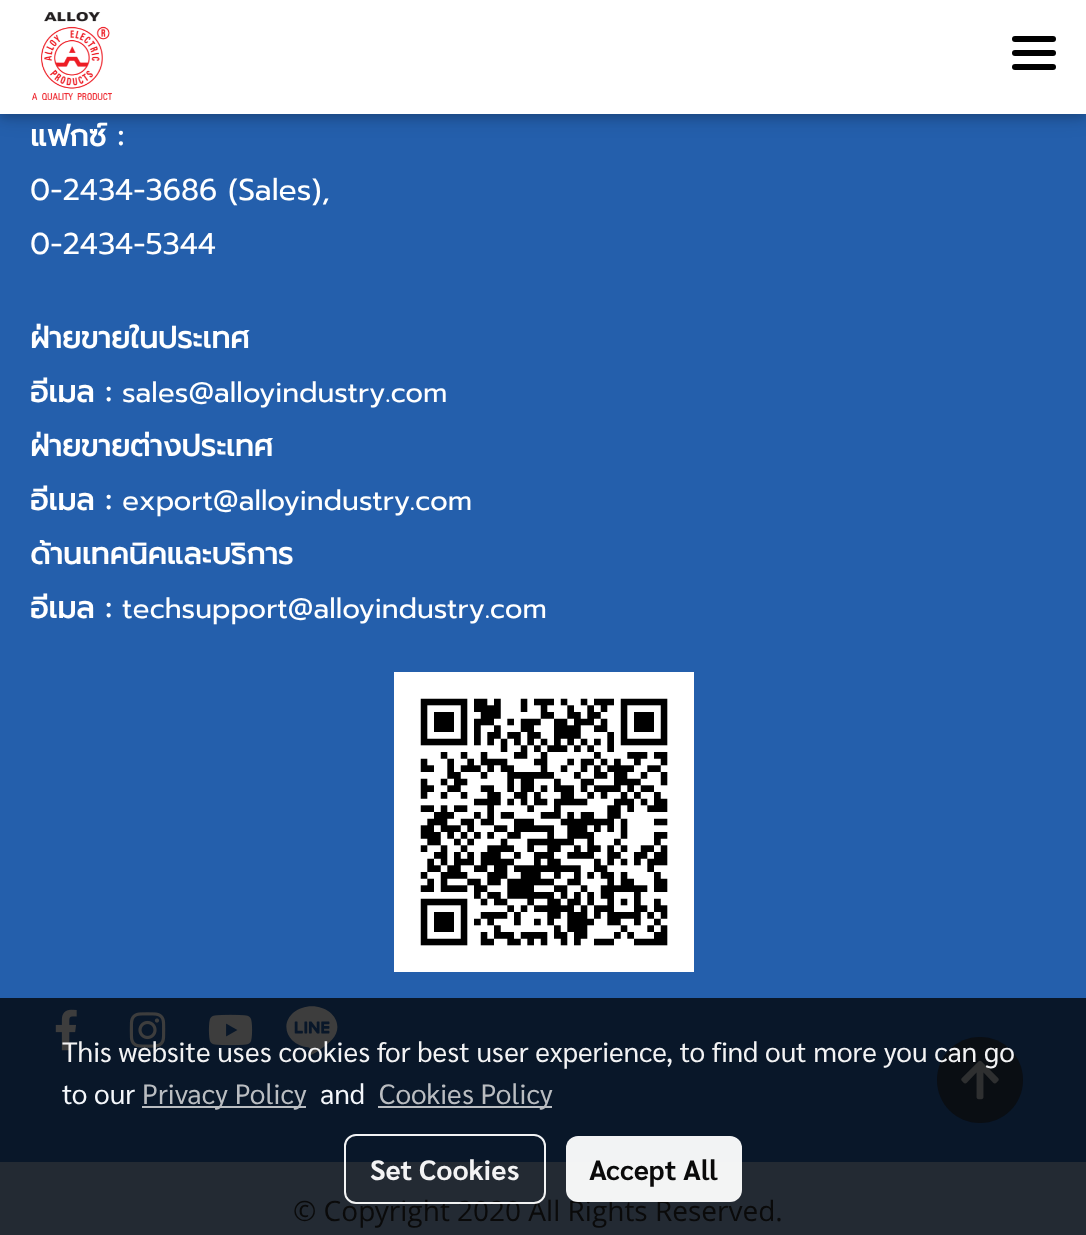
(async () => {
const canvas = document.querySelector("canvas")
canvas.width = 1086
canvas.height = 1235
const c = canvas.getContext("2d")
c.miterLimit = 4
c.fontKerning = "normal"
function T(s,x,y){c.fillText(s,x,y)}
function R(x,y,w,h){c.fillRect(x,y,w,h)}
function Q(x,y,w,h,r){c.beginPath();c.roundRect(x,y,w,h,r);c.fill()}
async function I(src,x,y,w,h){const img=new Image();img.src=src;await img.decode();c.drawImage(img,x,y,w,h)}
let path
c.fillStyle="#245fac"
R(0,0,1086,1235)
c.fillStyle="#0000001f"
c.filter="blur(10px)"
c.beginPath()
c.rect(0,4,1086,114)
c.fill()
c.filter="none"
c.fillStyle="#00000029"
c.filter="blur(5px)"
c.beginPath()
c.rect(0,4,1086,114)
c.fill()
c.filter="none"
c.fillStyle="#fff"
R(0,0,1086,114)
await I("1.png",32,12,80,88)
c.fillStyle="#000"
Q(1012,50,44,6,3)
Q(1012,36,44,6,3)
Q(1012,64,44,6,3)
c.fillStyle="#091729"
R(0,998,1086,164)
c.font="bold 30px Prompt"
c.fillStyle="#fff"
T("แฟกซ์ :",30,146)
c.font="30px Prompt"
T("0-2434-3686 (Sales),",30,200)
T("0-2434-5344",30,254)
c.font="bold 30px Prompt"
T("ฝ่ายขายในประเทศ",30,348)
T("อีเมล :",30,402)
c.font="28px Prompt"
T("sales@alloyindustry.com",122,402)
c.font="bold 30px Prompt"
T("ฝ่ายขายต่างประเทศ",30,456)
T("อีเมล :",30,510)
c.font="28px Prompt"
T("export@alloyindustry.com",122,510)
c.font="bold 30px Prompt"
T("ด้านเทคนิคและบริการ",30,564)
T("อีเมล :",30,618)
c.font="28px Prompt"
T("techsupport@alloyindustry.com",122,618)
await I("2.png",394,672,300,300)
await I("3.png",55,1009,22,42)
await I("4.png",129,1012,37,36)
await I("5.png",208,1014,45,32)
await I("6.png",286,1006,52,49)
c.fillStyle="#232a33"
R(0,1162,1086,73)
c.font="28px Open Sans"
c.fillStyle="#0a0a0a"
T("© Copyright 2020 All Rights Reserved.",293,1221)
c.fillStyle="#0a0e13"
path = new Path2D("M980 1037c-24 0-43 19-43 43c0 24 19 43 43 43c24 0 43-19 43-43c0-24-19-43-43-43z")
c.fill(path)
await I("7.png",961,1060,38,40)
c.font="28px Sarabun"
c.fillStyle="#f3f3f4"
T("This website uses cookies for best user experience, to find out more you can go",62,1062)
c.fillStyle="#f4f7fb"
T("to our",62,1104)
c.fillStyle="#babdc1"
R(142,1106,164,2)
T("Privacy Policy",142,1104)
c.fillStyle="#f4f7fb"
T("and",320,1104)
c.fillStyle="#babdc1"
R(378,1106,174,2)
T("Cookies Policy",379,1104)
c.beginPath()
c.roundRect(345,1135,200,68,11)
c.strokeStyle="#fffffff2"
c.lineWidth=2
c.stroke()
c.font="bold 28px Sarabun"
c.fillStyle="#f3f3f4"
T("Set Cookies",370,1180)
c.fillStyle="#fffffff2"
Q(566,1136,176,66,12)
c.fillStyle="#0a0a0a"
T("Accept All",589,1180)
})()
